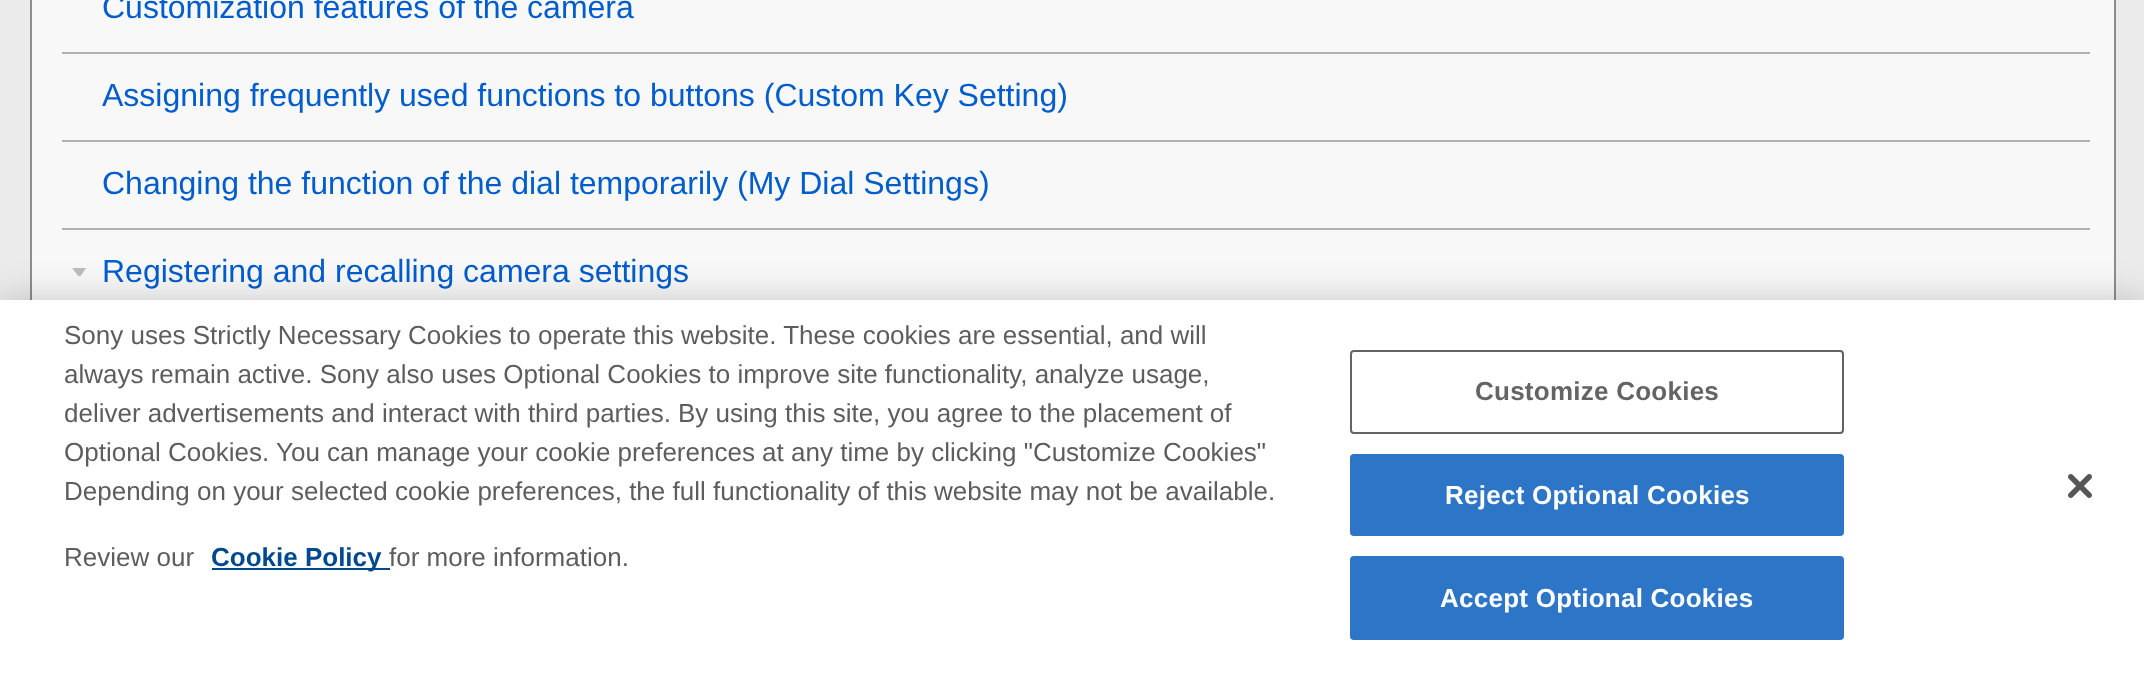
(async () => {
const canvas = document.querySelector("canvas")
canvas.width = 2144
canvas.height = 679
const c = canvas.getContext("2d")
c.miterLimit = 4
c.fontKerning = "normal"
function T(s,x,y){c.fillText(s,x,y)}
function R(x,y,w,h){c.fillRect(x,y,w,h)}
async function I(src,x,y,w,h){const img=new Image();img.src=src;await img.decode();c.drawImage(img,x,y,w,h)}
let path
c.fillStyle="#ebebeb"
R(0,0,2144,679)
c.fillStyle="#f8f8f8"
R(32,0,2082,300)
c.fillStyle="#8d8d8d"
R(2114,0,2,300)
R(30,0,2,300)
c.fillStyle="#b1b1b1"
R(62,52,2028,2)
c.font="32px Liberation Sans"
c.fillStyle="#005dcd"
T("Customization features of the camera",102,18)
c.fillStyle="#b1b1b1"
R(62,140,2028,2)
c.fillStyle="#005dcd"
T("Assigning frequently used functions to buttons (Custom Key Setting)",102,106)
c.fillStyle="#b1b1b1"
R(62,228,2028,2)
c.fillStyle="#005dcd"
T("Changing the function of the dial temporarily (My Dial Settings)",102,194)
c.save()
c.beginPath()
c.rect(72,268,14,8)
c.clip()
c.fillStyle="#bcbcbc"
path = new Path2D("M72 268l7 9h1l6-9z")
c.fill(path)
c.restore()
T("Registering and recalling camera settings",102,282)
c.fillStyle="#00000033"
c.filter="blur(18px)"
c.beginPath()
c.rect(0,300,2144,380)
c.fill()
c.filter="none"
c.fillStyle="#fff"
R(0,300,2144,379)
c.font="26px Liberation Sans"
c.fillStyle="#5d5d5d"
T("Sony uses Strictly Necessary Cookies to operate this website. These cookies are essential, and will",64,344)
T("always remain active. Sony also uses Optional Cookies to improve site functionality, analyze usage,",64,383)
T("deliver advertisements and interact with third parties.",64,422)
T("By using this site, you agree to the placement of",678,422)
T("Optional Cookies. You can manage your cookie preferences at any time by clicking \"Customize Cookies\"",64,461)
T("Depending on your selected cookie preferences, the full functionality of this website may not be available.",64,500)
T("Review our",64,566)
c.fillStyle="#01498e"
R(212,568,178,2)
c.font="bold 26px Liberation Sans"
T("Cookie Policy",211,566)
c.font="26px Liberation Sans"
c.fillStyle="#5d5d5d"
T("for more information.",389,566)
c.beginPath()
c.roundRect(1351,351,492,82,3)
c.strokeStyle="#646464"
c.lineWidth=2
c.stroke()
c.letterSpacing="0.25px"
c.font="bold 26px Liberation Sans"
c.fillStyle="#646464"
T("Customize Cookies",1475,400)
c.fillStyle="#2d75c7"
c.beginPath()
c.roundRect(1351,455,492,80,3)
c.fill()
c.strokeStyle="#2d75c7"
c.stroke()
c.fillStyle="#fff"
T("Reject Optional Cookies",1445,504)
c.fillStyle="#2d75c7"
c.beginPath()
c.roundRect(1351,557,492,82,3)
c.fill()
c.stroke()
c.fillStyle="#fff"
T("Accept Optional Cookies",1440,607)
await I("1.png",2068,474,24,24)
})()
